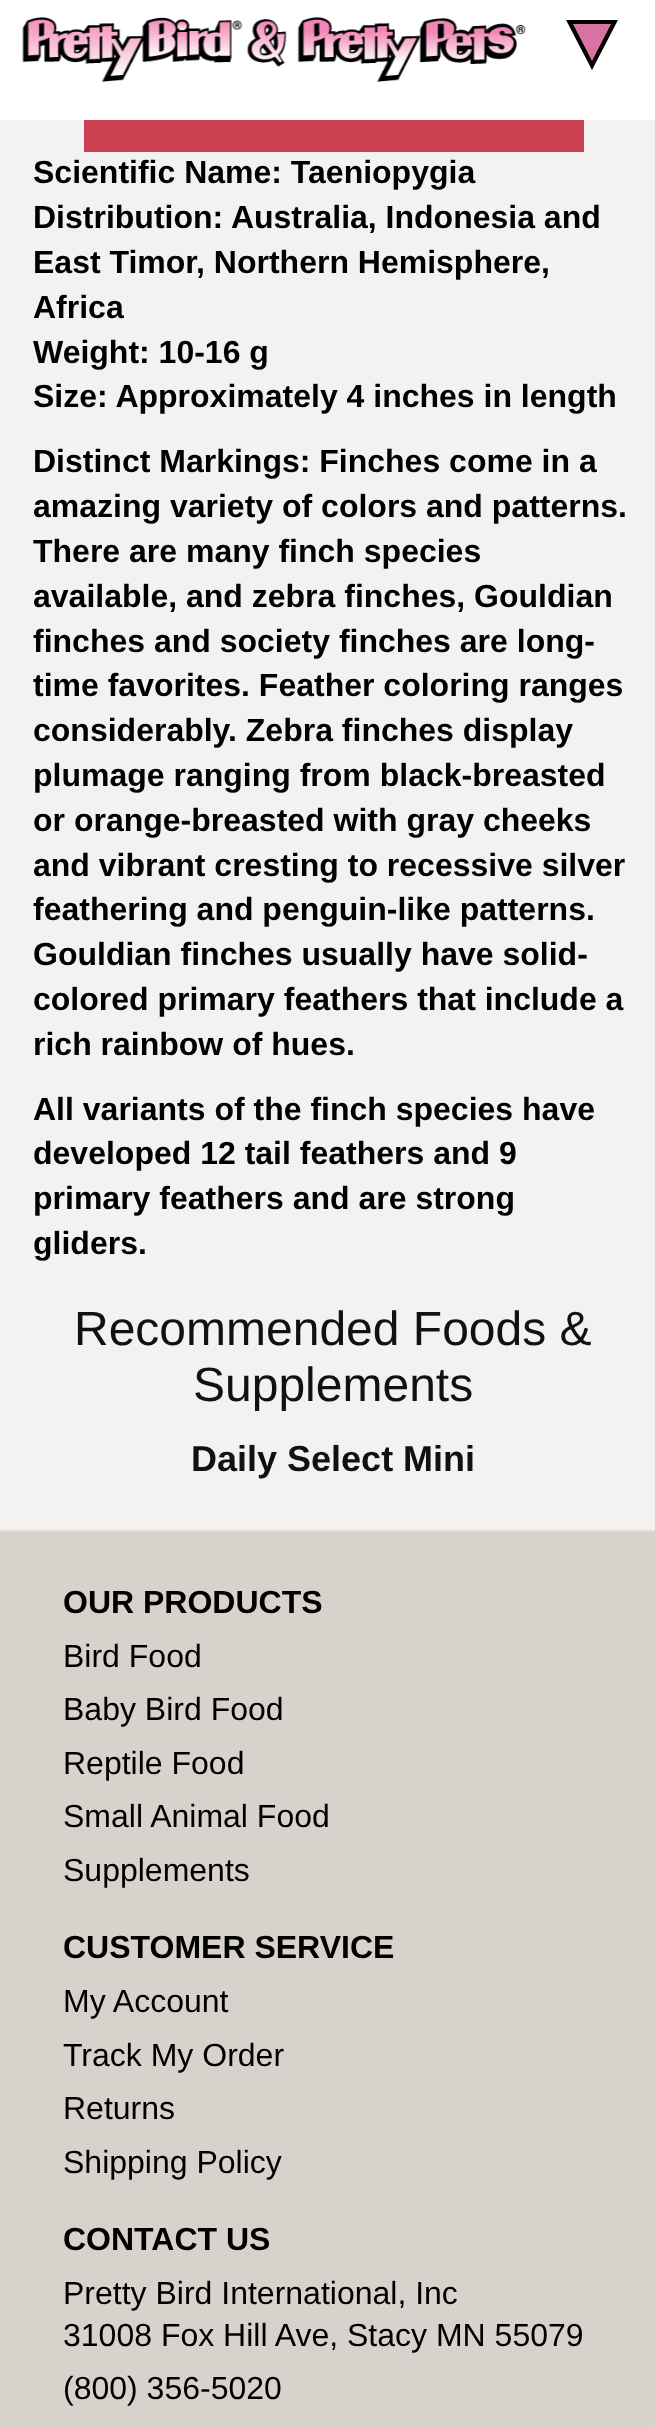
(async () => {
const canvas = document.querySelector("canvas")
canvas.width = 655
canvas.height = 2427
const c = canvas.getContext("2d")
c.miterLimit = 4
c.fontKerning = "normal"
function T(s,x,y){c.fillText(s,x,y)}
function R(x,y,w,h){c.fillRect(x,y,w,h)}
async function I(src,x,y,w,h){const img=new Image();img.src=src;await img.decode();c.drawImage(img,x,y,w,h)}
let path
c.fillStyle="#f3f2f0"
R(0,0,655,2427)
c.fillStyle="#fff"
R(0,0,655,120)
await I("1.png",22,17,504,65)
c.fillStyle="#d973a2"
path = new Path2D("M570 22h44l-22 43z")
c.fill(path)
c.fillStyle="#000"
path = new Path2D("M592 61l19-37h-38l19 37m0 9l-26-50h52z")
c.fill(path)
c.fillStyle="#cb4151"
R(84,120,500,32)
c.font="bold 32px Liberation Sans"
c.fillStyle="#000"
T("Scientific Name: Taeniopygia",33,183)
T("Distribution: Australia, Indonesia and",33,228)
T("East Timor, Northern Hemisphere,",33,273)
T("Africa",33,318)
T("Weight: 10-16 g",33,363)
T("Size: Approximately 4 inches in length",33,407)
T("Distinct Markings: Finches come in a",33,472)
T("amazing variety of colors and patterns.",33,517)
T("There are many finch species",33,562)
T("available, and zebra finches, Gouldian",33,607)
T("finches and society finches are long-",33,652)
T("time favorites. Feather coloring ranges",33,696)
T("considerably. Zebra finches display",33,741)
T("plumage ranging from black-breasted",33,786)
T("or orange-breasted with gray cheeks",33,831)
T("and vibrant cresting to recessive silver",33,876)
T("feathering and penguin-like patterns.",33,920)
T("Gouldian finches usually have solid-",33,965)
T("colored primary feathers that include a",33,1010)
T("rich rainbow of hues.",33,1055)
T("All variants of the finch species have",33,1120)
T("developed 12 tail feathers and 9",33,1164)
T("primary feathers and are strong",33,1209)
T("gliders.",33,1254)
c.font="48px Liberation Sans"
c.fillStyle="#111"
T("Recommended Foods &",74,1345)
T("Supplements",193,1401)
c.font="bold 36px Liberation Sans"
T("Daily Select Mini",191,1471)
c.fillStyle="#d7d2cc"
R(0,1532,655,895)
c.fillStyle="#e1ded8"
R(0,1530,655,2)
c.font="bold 32px Liberation Sans"
c.fillStyle="#000"
T("OUR PRODUCTS",63,1613)
c.font="32px Liberation Sans"
T("Bird Food",63,1667)
T("Baby Bird Food",63,1720)
T("Reptile Food",63,1774)
T("Small Animal Food",63,1827)
T("Supplements",63,1881)
c.font="bold 32px Liberation Sans"
T("CUSTOMER SERVICE",63,1958)
c.font="32px Liberation Sans"
T("My Account",63,2012)
T("Track My Order",63,2066)
T("Returns",63,2119)
T("Shipping Policy",63,2173)
c.font="bold 32px Liberation Sans"
T("CONTACT US",63,2250)
c.font="32px Liberation Sans"
T("Pretty Bird International, Inc",63,2304)
T("31008 Fox Hill Ave, Stacy MN 55079",63,2346)
T("(800) 356-5020",63,2399)
})()
